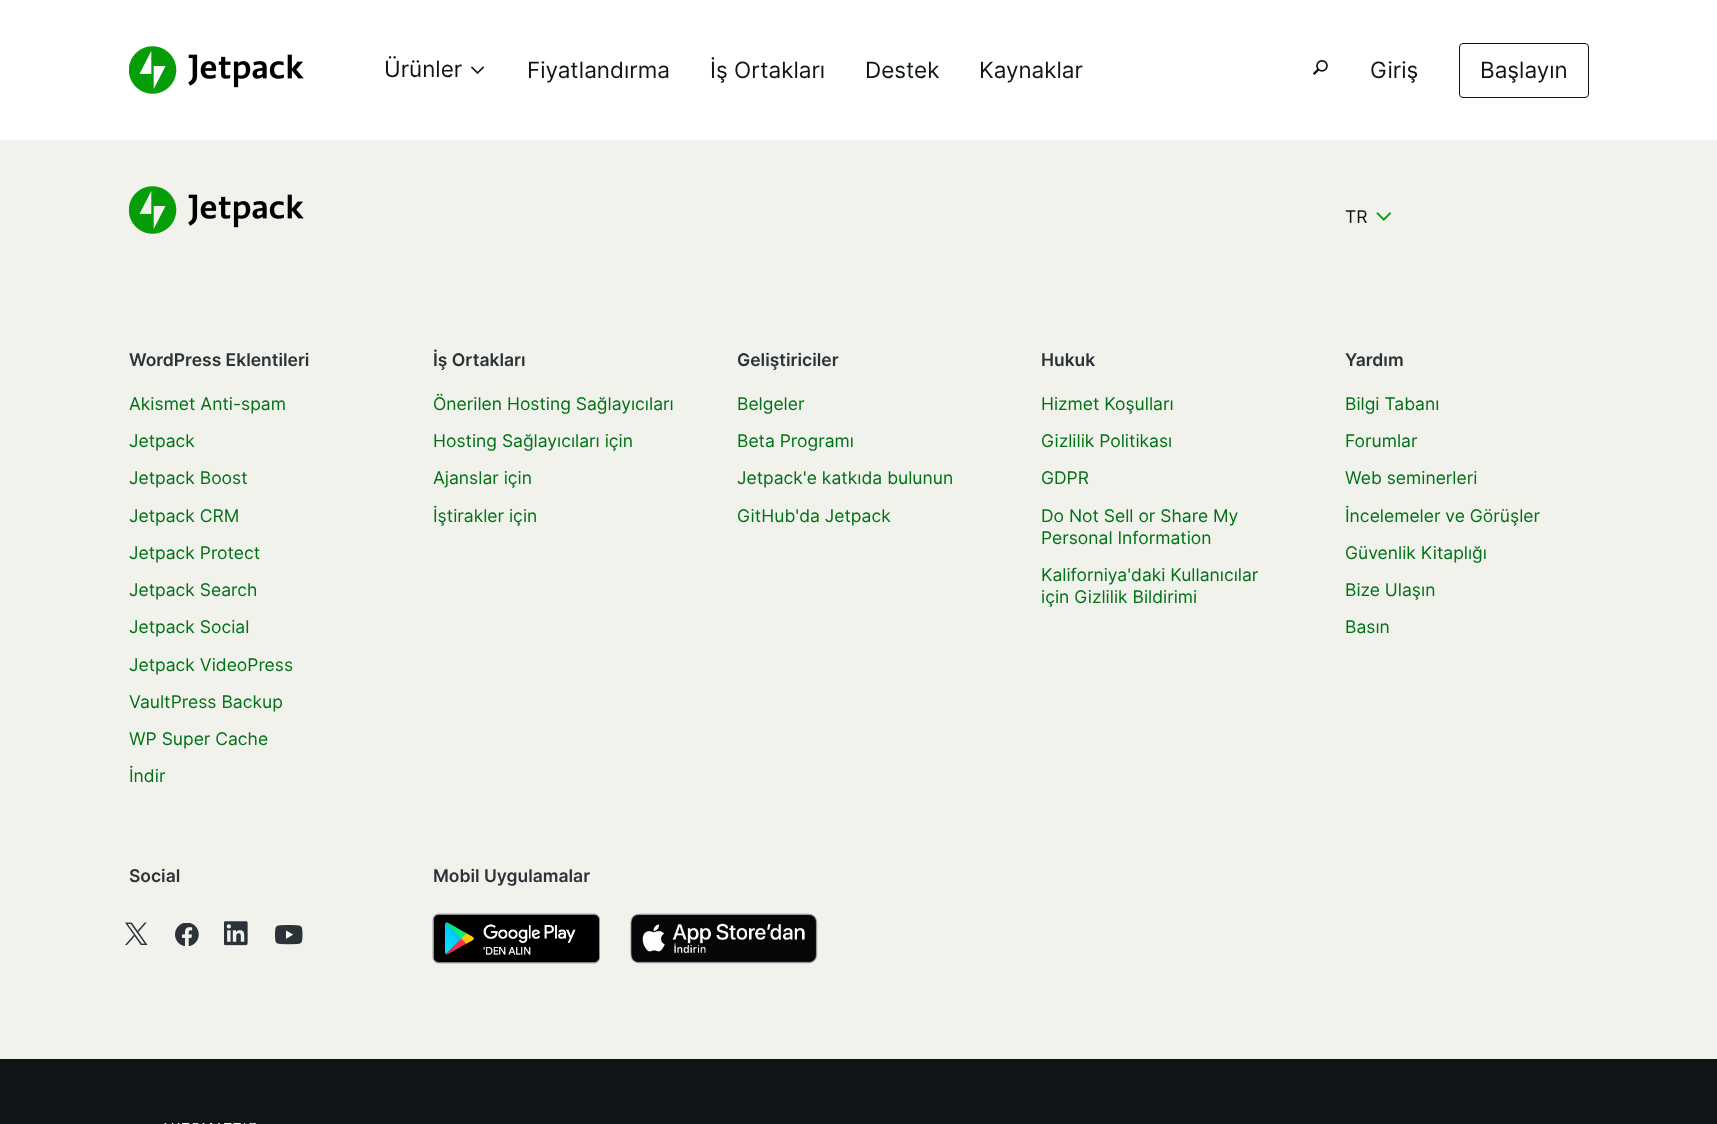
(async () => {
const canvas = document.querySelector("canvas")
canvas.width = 1717
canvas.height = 1124
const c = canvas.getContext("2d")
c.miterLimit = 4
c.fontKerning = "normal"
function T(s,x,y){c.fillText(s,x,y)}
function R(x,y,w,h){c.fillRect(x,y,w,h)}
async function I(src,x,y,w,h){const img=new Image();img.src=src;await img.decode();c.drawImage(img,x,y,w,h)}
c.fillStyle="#f0f2eb"
R(0,0,1717,1124)
c.fillStyle="#fff"
R(0,0,1717,140)
await I("1.png",129,46,175,48)
c.font="22.5px Inter"
c.fillStyle="#101517"
T("Ürünler",384,77)
await I("2.png",470,66,15,9)
T("Fiyatlandırma",527,78)
T("İş Ortakları",710,78)
T("Destek",865,78)
T("Kaynaklar",979,78)
await I("3.png",1312,60,16,15)
T("Giriş",1370,78)
c.beginPath()
c.roundRect(1459.5,43.5,129,54,3.5)
c.strokeStyle="#101517"
c.stroke()
T("Başlayın",1480,78)
await I("4.png",129,186,175,48)
c.font="17.5px Inter"
T("TR",1345,223)
await I("5.png",1376,212,16,9)
c.font="600 17.5px Inter"
c.fillStyle="#2c3338"
T("WordPress Eklentileri",129,366)
c.font="17.5px Inter"
c.fillStyle="#007117"
T("Akismet Anti-spam",129,410)
T("Jetpack",129,447)
T("Jetpack Boost",129,484)
T("Jetpack CRM",129,522)
T("Jetpack Protect",129,559)
T("Jetpack Search",129,596)
T("Jetpack Social",129,633)
T("Jetpack VideoPress",129,671)
T("VaultPress Backup",129,708)
T("WP Super Cache",129,745)
T("İndir",129,782)
c.font="600 17.5px Inter"
c.fillStyle="#2c3338"
T("İş Ortakları",433,366)
c.font="17.5px Inter"
c.fillStyle="#007117"
T("Önerilen Hosting Sağlayıcıları",433,410)
T("Hosting Sağlayıcıları için",433,447)
T("Ajanslar için",433,484)
T("İştirakler için",433,522)
c.font="600 17.5px Inter"
c.fillStyle="#2c3338"
T("Geliştiriciler",737,366)
c.font="17.5px Inter"
c.fillStyle="#007117"
T("Belgeler",737,410)
T("Beta Programı",737,447)
T("Jetpack'e katkıda bulunun",737,484)
T("GitHub'da Jetpack",737,522)
c.font="600 17.5px Inter"
c.fillStyle="#2c3338"
T("Hukuk",1041,366)
c.font="17.5px Inter"
c.fillStyle="#007117"
T("Hizmet Koşulları",1041,410)
T("Gizlilik Politikası",1041,447)
T("GDPR",1041,484)
T("Do Not Sell or Share My",1041,522)
T("Personal Information",1041,544)
T("Kaliforniya'daki Kullanıcılar",1041,581)
T("için Gizlilik Bildirimi",1041,603)
c.font="600 17.5px Inter"
c.fillStyle="#2c3338"
T("Yardım",1345,366)
c.font="17.5px Inter"
c.fillStyle="#007117"
T("Bilgi Tabanı",1345,410)
T("Forumlar",1345,447)
T("Web seminerleri",1345,484)
T("İncelemeler ve Görüşler",1345,522)
T("Güvenlik Kitaplığı",1345,559)
T("Bize Ulaşın",1345,596)
T("Basın",1345,633)
c.font="600 17.5px Inter"
c.fillStyle="#2c3338"
T("Social",129,882)
await I("6.png",125,922,23,23)
await I("7.png",175,923,24,23)
await I("8.png",224,921,24,25)
await I("9.png",275,925,28,20)
T("Mobil Uygulamalar",433,882)
await I("10.png",432,913,168,51)
await I("11.png",630,913,188,51)
c.fillStyle="#101517"
R(0,1059,1717,65)
await I("12.png",164,1123,92,1)
})()
